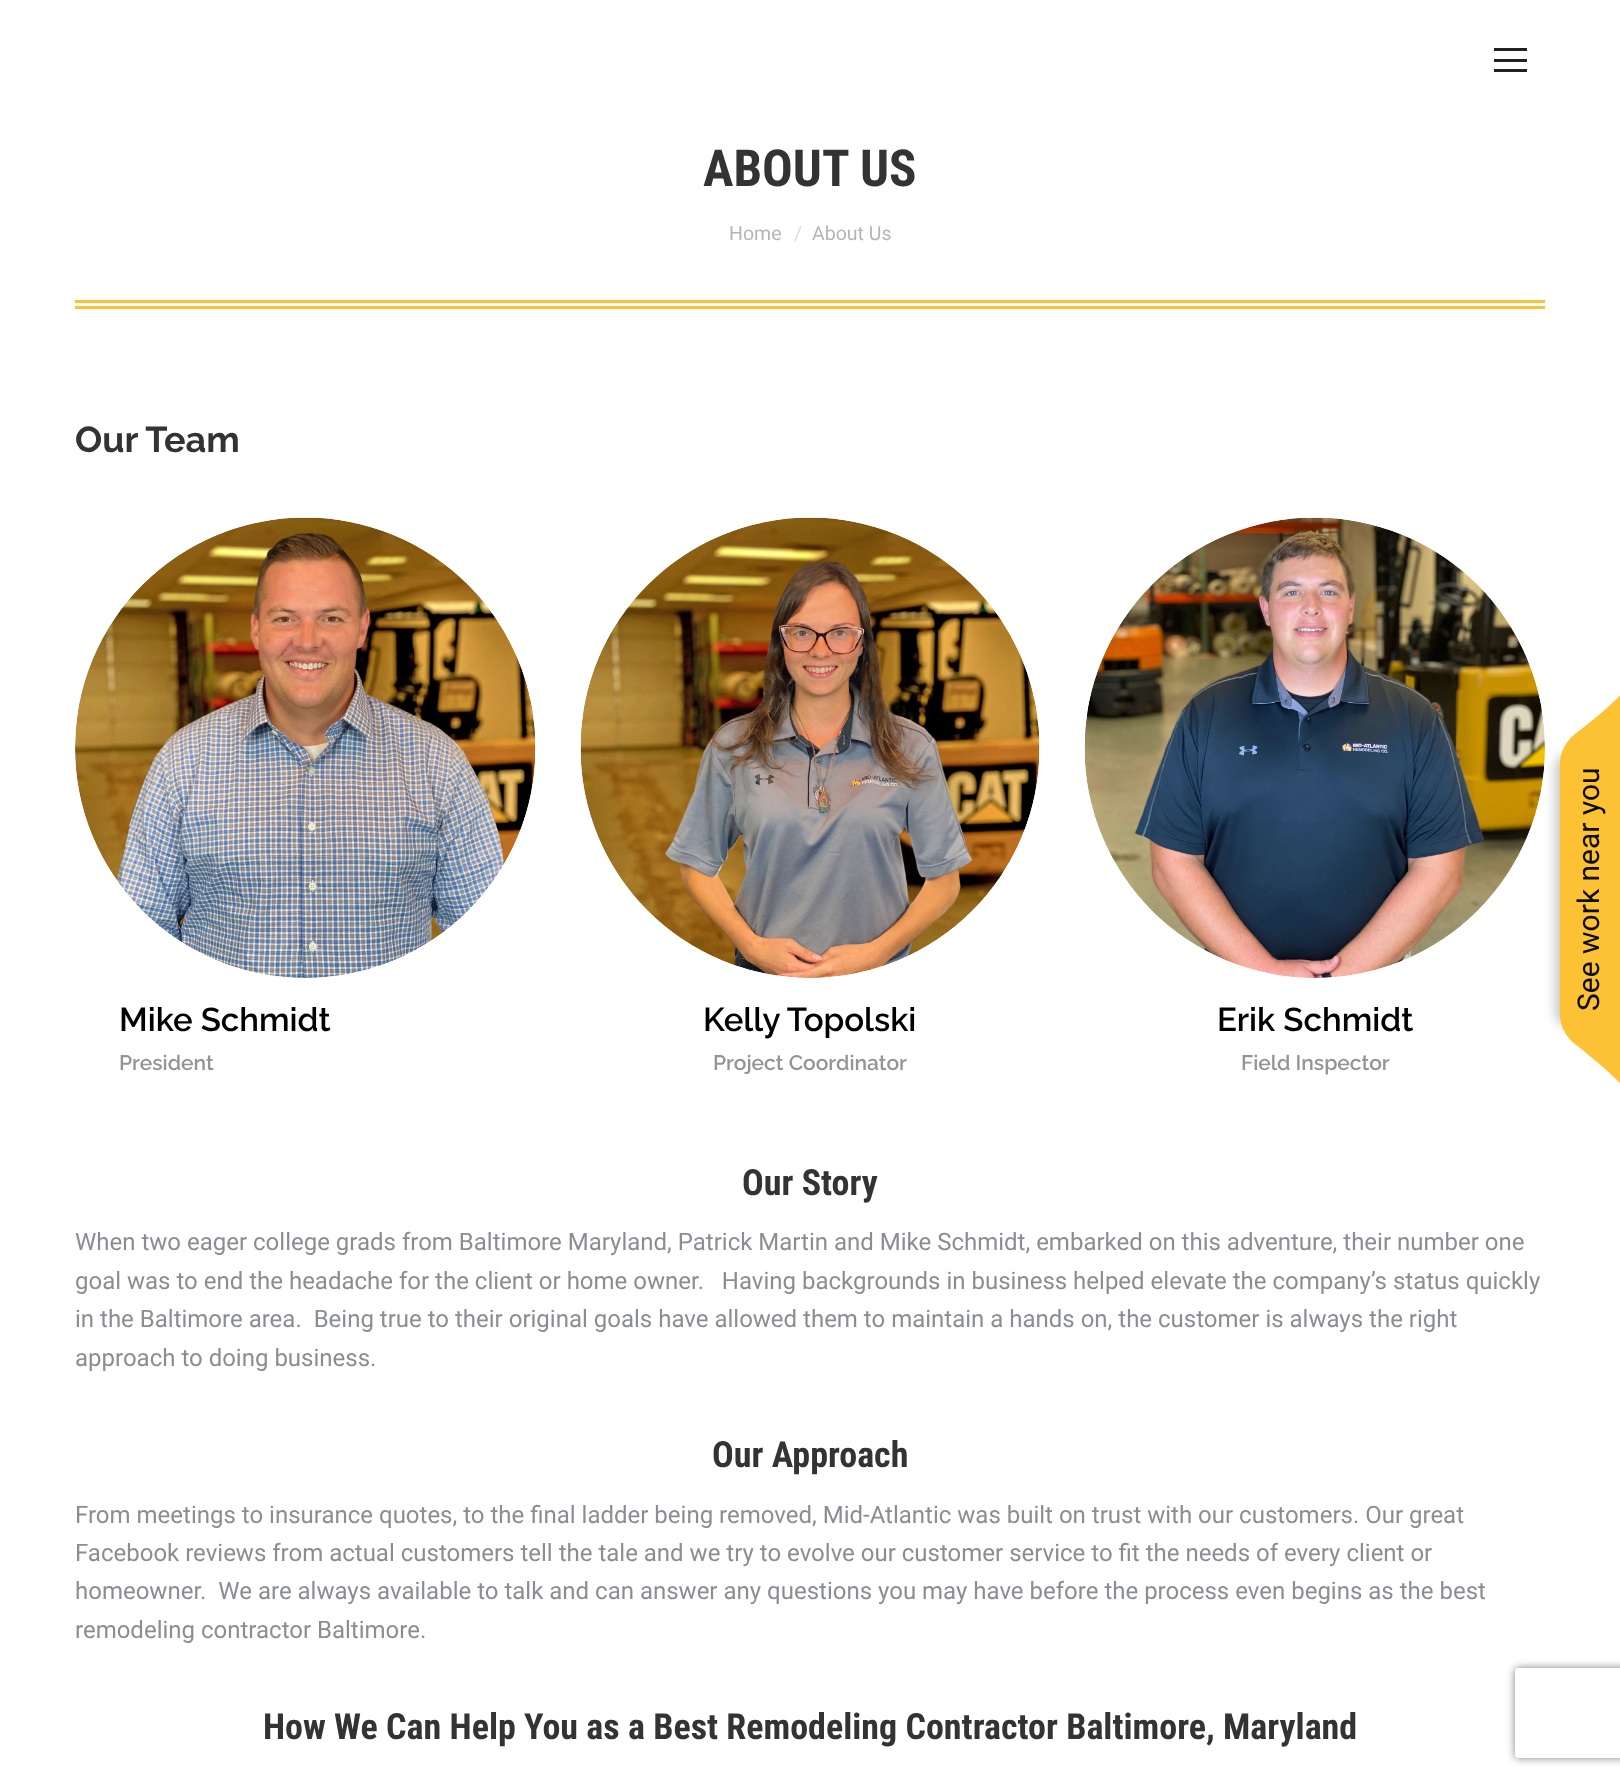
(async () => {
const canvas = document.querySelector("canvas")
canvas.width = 1620
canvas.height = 1779
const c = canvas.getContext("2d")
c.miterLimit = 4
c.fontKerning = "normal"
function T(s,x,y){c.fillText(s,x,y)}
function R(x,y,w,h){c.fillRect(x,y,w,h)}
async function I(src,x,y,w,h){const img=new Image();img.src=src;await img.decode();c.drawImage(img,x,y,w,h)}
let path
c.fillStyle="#fff"
R(0,0,1620,1779)
c.fillStyle="#222"
R(1494,48,33,3)
R(1494,59,33,3)
R(1494,69,33,3)
c.font="bold 51px Roboto Condensed"
c.fillStyle="#333"
T("ABOUT US",703,186)
c.font="19.5px Roboto"
c.fillStyle="#b4b5bb"
T("Home",729,240)
c.fillStyle="#dadadd"
T("/",794,240)
c.fillStyle="#b4b5bb"
T("About Us",812,240)
c.fillStyle="#fdc134"
R(75,300,1470,3)
R(75,306,1470,3)
c.font="bold 36px Raleway"
c.fillStyle="#333"
T("Our Team",75,452)
await I("1.png",75,517,461,461)
c.font="600 33px Raleway"
c.fillStyle="#000"
T("Mike Schmidt",119,1031)
c.font="600 21px Raleway"
c.fillStyle="#949494"
T("President",119,1070)
await I("2.png",580,517,460,461)
c.font="600 33px Raleway"
c.fillStyle="#000"
T("Kelly Topolski",703,1031)
c.font="600 21px Raleway"
c.fillStyle="#949494"
T("Project Coordinator",713,1070)
await I("3.png",1084,517,461,461)
c.font="600 33px Raleway"
c.fillStyle="#000"
T("Erik Schmidt",1217,1031)
c.font="600 21px Raleway"
c.fillStyle="#949494"
T("Field Inspector",1241,1070)
c.font="bold 36px Roboto Condensed"
c.fillStyle="#333"
T("Our Story",742,1195)
c.font="24px Roboto"
c.fillStyle="#8b8d94"
T("When two eager college grads from Baltimore Maryland, Patrick Martin and Mike Schmidt, embarked on this adventure, their number one",75,1250)
T("goal was to end the headache for the client or home owner.   Having backgrounds in business helped elevate the company’s status quickly",75,1289)
T("in the Baltimore area.  Being true to their original goals have allowed them to maintain a hands on, the customer is always the right",75,1327)
T("approach to doing business.",75,1366)
c.font="bold 36px Roboto Condensed"
c.fillStyle="#333"
T("Our Approach",712,1467)
c.font="24px Roboto"
c.fillStyle="#8b8d94"
T("From meetings to insurance quotes, to the final ladder being removed, Mid-Atlantic was built on trust with our customers. Our great",75,1523)
T("Facebook reviews from actual customers tell the tale and we try to evolve our customer service to fit the needs of every client or",75,1561)
T("homeowner.  We are always available to talk and can answer any questions you may have before the process even begins as the best",75,1599)
T("remodeling contractor Baltimore.",75,1638)
c.font="bold 36px Roboto Condensed"
c.fillStyle="#333"
T("How We Can Help You as a Best Remodeling Contractor Baltimore, Maryland",263,1739)
c.fillStyle="#07050540"
c.filter="blur(6px)"
c.beginPath()
c.roundRect(1556,755,60,270,12)
c.fill()
c.filter="none"
c.fillStyle="#fdc134"
c.beginPath()
c.roundRect(1560,755,60,270,[12,0,0,12])
c.fill()
path = new Path2D("M1560 769h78c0 0 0-125 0-102c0 17-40 50-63 67c-9 7-15 18-15 30z")
c.fill(path)
path = new Path2D("M1560 1009h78c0 0 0 126 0 102c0-16-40-49-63-67c-9-7-15-18-15-29z")
c.fill(path)
c.font="30px Roboto"
c.fillStyle="#0c0c0c"
c.save()
c.translate(1599,1011)
c.rotate(-90 * Math.PI / 180)
c.fillText("See work near you",0,0)
c.restore()
c.save()
path = new Path2D("M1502 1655h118v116h-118zm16 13h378c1.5 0 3 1.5 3 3v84c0 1.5-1.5 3-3 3h-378c-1.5 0-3-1.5-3-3v-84c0-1.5 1.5-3 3-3z")
c.clip(path,"evenodd")
c.fillStyle="#808080"
c.filter="blur(4px)"
c.beginPath()
c.roundRect(1515,1668,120,90,3)
c.fill()
c.filter="none"
c.restore()
})()
